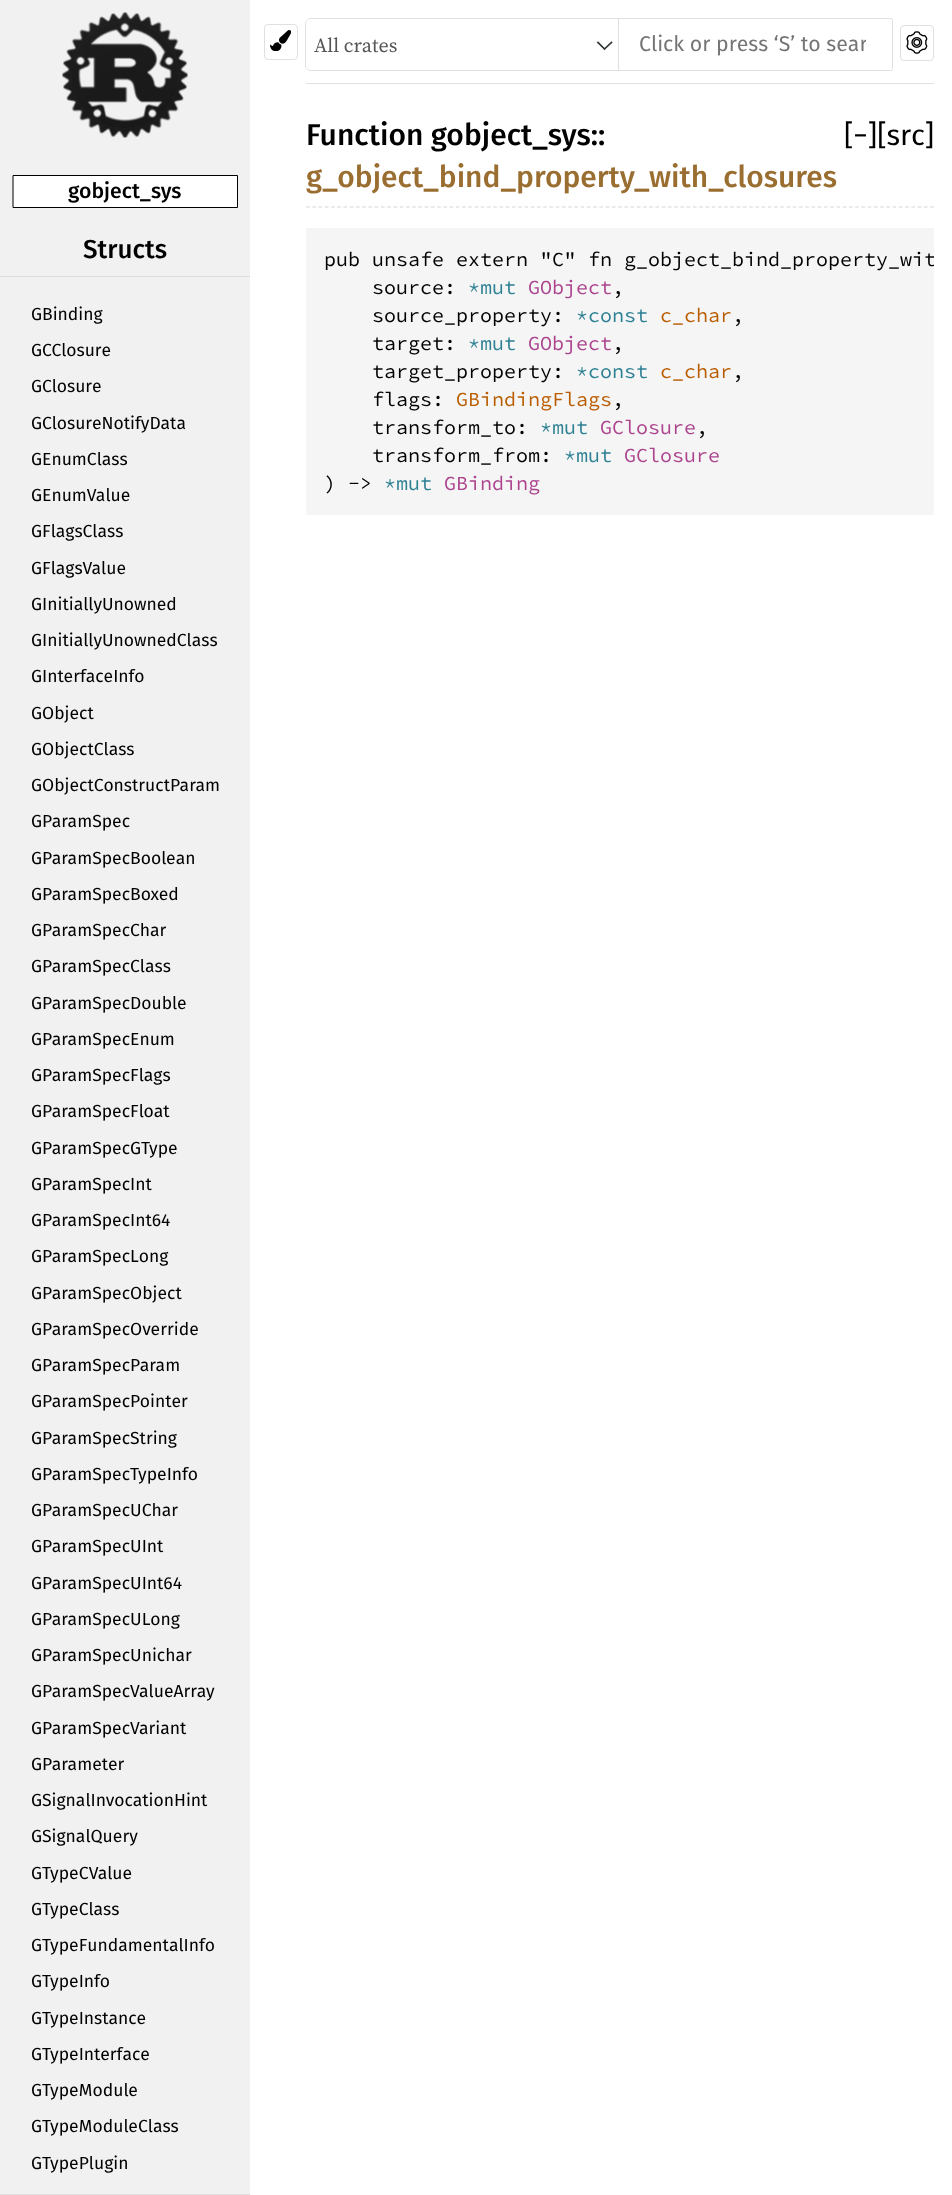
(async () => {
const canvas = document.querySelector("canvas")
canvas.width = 952
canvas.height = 2195
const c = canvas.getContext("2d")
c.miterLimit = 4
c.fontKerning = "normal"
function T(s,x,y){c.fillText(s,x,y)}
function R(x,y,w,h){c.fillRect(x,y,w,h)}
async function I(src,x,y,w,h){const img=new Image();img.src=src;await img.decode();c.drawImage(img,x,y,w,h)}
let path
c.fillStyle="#fff"
R(0,0,952,2195)
c.beginPath()
c.roundRect(264.5,24.5,33,35,3.5)
c.strokeStyle="#e0e0e0"
c.stroke()
await I("1.png",270,30,21,21)
c.fillStyle="#e0e0e0"
R(306,83,628,1)
c.beginPath()
c.roundRect(305.5,18.5,314,52,[5.5,0,0,5.5])
c.stroke()
c.fillStyle="#fff"
c.beginPath()
c.roundRect(306,19,313,51,[5,0,0,5])
c.fill()
path = new Path2D("M611.5 42.5l-7 6.5m0 0l-6.5-6.5")
c.strokeStyle="#2f3435"
c.lineWidth=1.7
c.lineCap="square"
c.stroke(path)
c.font="20px Source Serif Pro"
c.fillStyle="#555"
T("All crates",314,52)
c.beginPath()
c.roundRect(618.5,18.5,274,52,[0,2,2,0])
c.strokeStyle="#e0e0e0"
c.lineWidth=1
c.stroke()
c.fillStyle="#fff"
c.beginPath()
c.roundRect(619,19,272,51,[0,1,1,0])
c.fill()
c.save()
c.beginPath()
c.rect(639,31,227,27)
c.clip()
c.font="21.25px Fira Sans"
c.fillStyle="#757575"
T("Click or press ‘S’ to sear",639,51)
c.restore()
c.beginPath()
c.roundRect(900.5,25.5,33,35,3.5)
c.stroke()
await I("2.png",906,31,22,23)
c.fillStyle="#f1f1f1"
R(0,0,250,2194)
c.fillStyle="#e0e0e0"
R(0,2194,250,1)
await I("3.png",62,12,126,126)
c.fillStyle="#fff"
c.beginPath()
c.rect(13.5,175.5,224,32)
c.fill()
c.strokeStyle="#000"
c.stroke()
c.font="500 21.25px Fira Sans"
c.fillStyle="#000"
T("gobject_sys",68,198)
c.fillStyle="#ddd"
R(0,276,250,1)
c.font="500 26px Fira Sans"
c.fillStyle="#000"
T("Structs",83,258)
c.font="17.5px Fira Sans"
T("GBinding",31,320)
T("GCClosure",31,356)
T("GClosure",31,392)
T("GClosureNotifyData",31,429)
T("GEnumClass",31,465)
T("GEnumValue",31,501)
T("GFlagsClass",31,537)
T("GFlagsValue",31,574)
T("GInitiallyUnowned",31,610)
T("GInitiallyUnownedClass",31,646)
T("GInterfaceInfo",31,682)
T("GObject",31,719)
T("GObjectClass",31,755)
T("GObjectConstructParam",31,791)
T("GParamSpec",31,827)
T("GParamSpecBoolean",31,864)
T("GParamSpecBoxed",31,900)
T("GParamSpecChar",31,936)
T("GParamSpecClass",31,972)
T("GParamSpecDouble",31,1009)
T("GParamSpecEnum",31,1045)
T("GParamSpecFlags",31,1081)
T("GParamSpecFloat",31,1117)
T("GParamSpecGType",31,1154)
T("GParamSpecInt",31,1190)
T("GParamSpecInt64",31,1226)
T("GParamSpecLong",31,1262)
T("GParamSpecObject",31,1299)
T("GParamSpecOverride",31,1335)
T("GParamSpecParam",31,1371)
T("GParamSpecPointer",31,1407)
T("GParamSpecString",31,1444)
T("GParamSpecTypeInfo",31,1480)
T("GParamSpecUChar",31,1516)
T("GParamSpecUInt",31,1552)
T("GParamSpecUInt64",31,1589)
T("GParamSpecULong",31,1625)
T("GParamSpecUnichar",31,1661)
T("GParamSpecValueArray",31,1697)
T("GParamSpecVariant",31,1734)
T("GParameter",31,1770)
T("GSignalInvocationHint",31,1806)
T("GSignalQuery",31,1842)
T("GTypeCValue",31,1879)
T("GTypeClass",31,1915)
T("GTypeFundamentalInfo",31,1951)
T("GTypeInfo",31,1987)
T("GTypeInstance",31,2024)
T("GTypeInterface",31,2060)
T("GTypeModule",31,2096)
T("GTypeModuleClass",31,2132)
T("GTypePlugin",31,2169)
path = new Path2D("M306 207h628")
c.strokeStyle="#d5d5d5"
c.lineWidth=1.2
c.lineCap="butt"
c.setLineDash([3.75,2.49])
c.stroke(path)
c.font="500 30px Fira Sans"
T("Function gobject_sys::",306,145)
c.font="29px Fira Sans"
T("[−][src]",844,145)
c.font="500 30px Fira Sans"
c.fillStyle="#9a6e31"
T("g_object_bind_property_with_closures",306,187)
c.fillStyle="#f5f5f5"
R(306,228,628,287)
c.save()
c.beginPath()
c.rect(306,228,628,287)
c.clip()
c.font="20px Source Code Pro"
c.fillStyle="#000"
T("pub unsafe extern \"C\" fn g_object_bind_property_wit",324,266)
c.restore()
c.font="20px Source Code Pro"
c.fillStyle="#000"
T("source:",372,294)
c.fillStyle="#2c8093"
T("*mut",468,294)
c.fillStyle="#ad448e"
T("GObject",528,294)
c.fillStyle="#000"
T(",",612,294)
T("source_property:",372,322)
c.fillStyle="#2c8093"
T("*const",576,322)
c.fillStyle="#ba5d00"
T("c_char",660,322)
c.fillStyle="#000"
T(",",732,322)
T("target:",372,350)
c.fillStyle="#2c8093"
T("*mut",468,350)
c.fillStyle="#ad448e"
T("GObject",528,350)
c.fillStyle="#000"
T(",",612,350)
T("target_property:",372,378)
c.fillStyle="#2c8093"
T("*const",576,378)
c.fillStyle="#ba5d00"
T("c_char",660,378)
c.fillStyle="#000"
T(",",732,378)
T("flags:",372,406)
c.fillStyle="#ba5d00"
T("GBindingFlags",456,406)
c.fillStyle="#000"
T(",",612,406)
T("transform_to:",372,434)
c.fillStyle="#2c8093"
T("*mut",540,434)
c.fillStyle="#ad448e"
T("GClosure",600,434)
c.fillStyle="#000"
T(",",696,434)
T("transform_from:",372,462)
c.fillStyle="#2c8093"
T("*mut",564,462)
c.fillStyle="#ad448e"
T("GClosure",624,462)
c.fillStyle="#000"
T(") ->",324,490)
c.fillStyle="#2c8093"
T("*mut",384,490)
c.fillStyle="#ad448e"
T("GBinding",444,490)
})()
